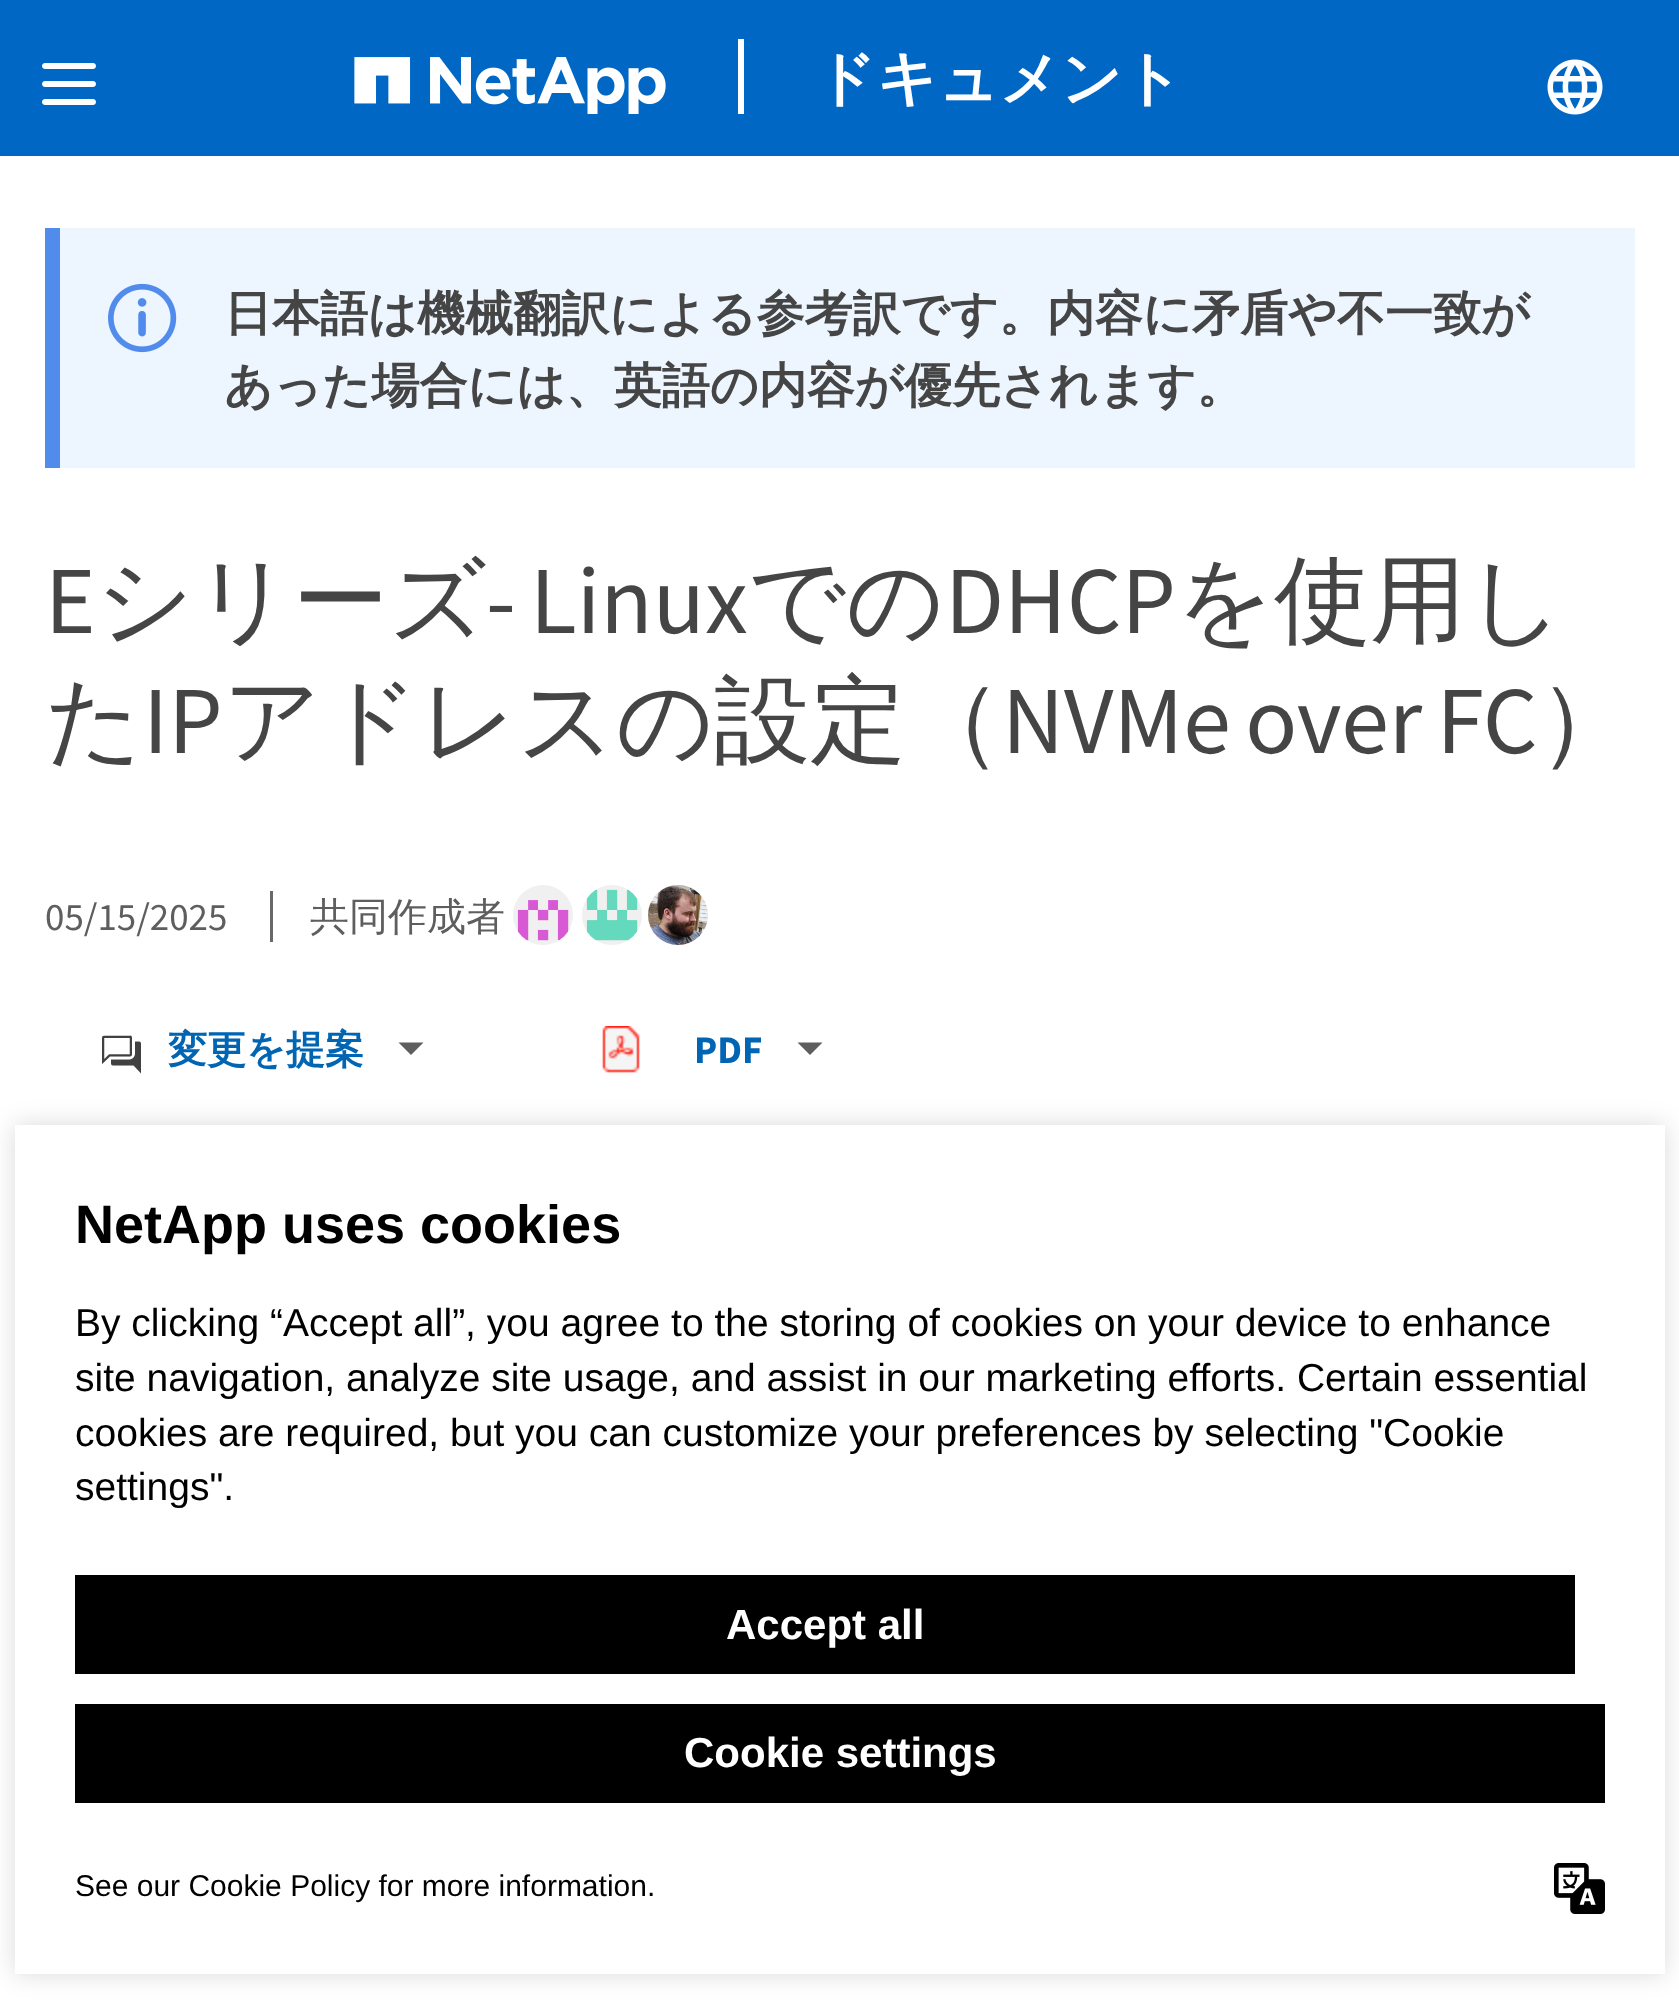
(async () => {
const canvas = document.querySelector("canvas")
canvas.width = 1679
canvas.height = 2004
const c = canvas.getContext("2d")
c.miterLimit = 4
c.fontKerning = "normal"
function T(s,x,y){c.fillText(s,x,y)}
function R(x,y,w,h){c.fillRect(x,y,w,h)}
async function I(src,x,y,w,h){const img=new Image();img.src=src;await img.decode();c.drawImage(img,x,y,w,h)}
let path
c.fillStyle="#fff"
R(0,0,1679,2004)
c.fillStyle="#0067c5"
R(0,0,1679,156)
await I("1.png",42,63,54,42)
await I("2.png",354,57,312,57)
c.fillStyle="#fff"
R(738,39,6,75)
c.font="bold 60px WenQuanYi Zen Hei"
T("ドキュメント",815,99)
await I("3.png",1547,59,56,56)
c.fillStyle="#edf6ff"
R(60,228,1575,240)
c.fillStyle="#518bec"
R(45,228,15,240)
await I("4.png",108,283,69,70)
c.font="bold 48px WenQuanYi Zen Hei"
c.fillStyle="#454545"
T("日本語は機械翻訳による参考訳です。内容に矛盾や不一致が",224,330)
T("あった場合には、英語の内容が優先されます。",224,402)
c.font="96px Source Sans Pro"
T("E",45,633)
c.font="500 96px WenQuanYi Zen Hei"
T("シリーズ",96,633)
c.wordSpacing="-5px"
c.font="96px Source Sans Pro"
T("- Linux",486,633)
c.wordSpacing="0px"
c.font="500 96px WenQuanYi Zen Hei"
T("での",748,633)
c.font="96px Source Sans Pro"
T("DHCP",945,633)
c.font="500 96px WenQuanYi Zen Hei"
T("を使用し",1176,633)
T("た",45,753)
c.font="96px Source Sans Pro"
T("IP",143,753)
c.font="500 96px WenQuanYi Zen Hei"
T("アドレスの設定（",223,753)
c.wordSpacing="-5px"
c.font="96px Source Sans Pro"
T("NVMe over FC",1002,753)
c.wordSpacing="0px"
c.font="500 96px WenQuanYi Zen Hei"
T("）",1538,753)
c.font="39px Source Sans Pro"
c.fillStyle="#5e5e5e"
T("05/15/2025",45,930)
c.fillStyle="#686868"
R(270,891,3,51)
c.font="500 39px WenQuanYi Zen Hei"
c.fillStyle="#5e5e5e"
T("共同作成者",310,930)
await I("5.png",513,885,60,60)
await I("6.png",582,885,60,60)
await I("7.png",648,885,60,60)
await I("8.png",102,1035,39,39)
c.font="bold 39px WenQuanYi Zen Hei"
c.fillStyle="#0065b3"
T("変更を提案",168,1063)
c.fillStyle="#5e5e5e"
path = new Path2D("M411 1055l-12.5-12.5h25z")
c.fill(path)
await I("9.png",602,1026,38,47)
c.font="bold 39px Source Sans Pro"
c.fillStyle="#0065b3"
T("PDF",694,1063)
c.fillStyle="#5e5e5e"
path = new Path2D("M810 1055l-12.5-12.5h25z")
c.fill(path)
c.fillStyle="#00000026"
c.filter="blur(12px)"
c.beginPath()
c.rect(15,1125,1650,849)
c.fill()
c.filter="none"
c.fillStyle="#fff"
R(15,1125,1650,849)
c.font="bold 54px Liberation Sans"
c.fillStyle="#000"
T("NetApp uses cookies",75,1243)
c.font="39px Liberation Sans"
T("By clicking “Accept all”, you agree to the storing of cookies on your device to enhance",75,1336)
T("site navigation, analyze site usage, and assist in our marketing efforts. Certain essential",75,1391)
T("cookies are required, but you can customize your preferences by selecting \"Cookie",75,1446)
T("settings\".",75,1500)
R(75,1575,1500,99)
c.font="bold 42px Liberation Sans"
c.fillStyle="#fff"
T("Accept all",726,1639)
c.fillStyle="#000"
R(75,1704,1530,99)
c.fillStyle="#fff"
T("Cookie settings",684,1767)
c.font="30px Liberation Sans"
c.fillStyle="#000"
T("See our Cookie Policy for more information.",75,1896)
await I("10.png",1554,1863,51,51)
})()
